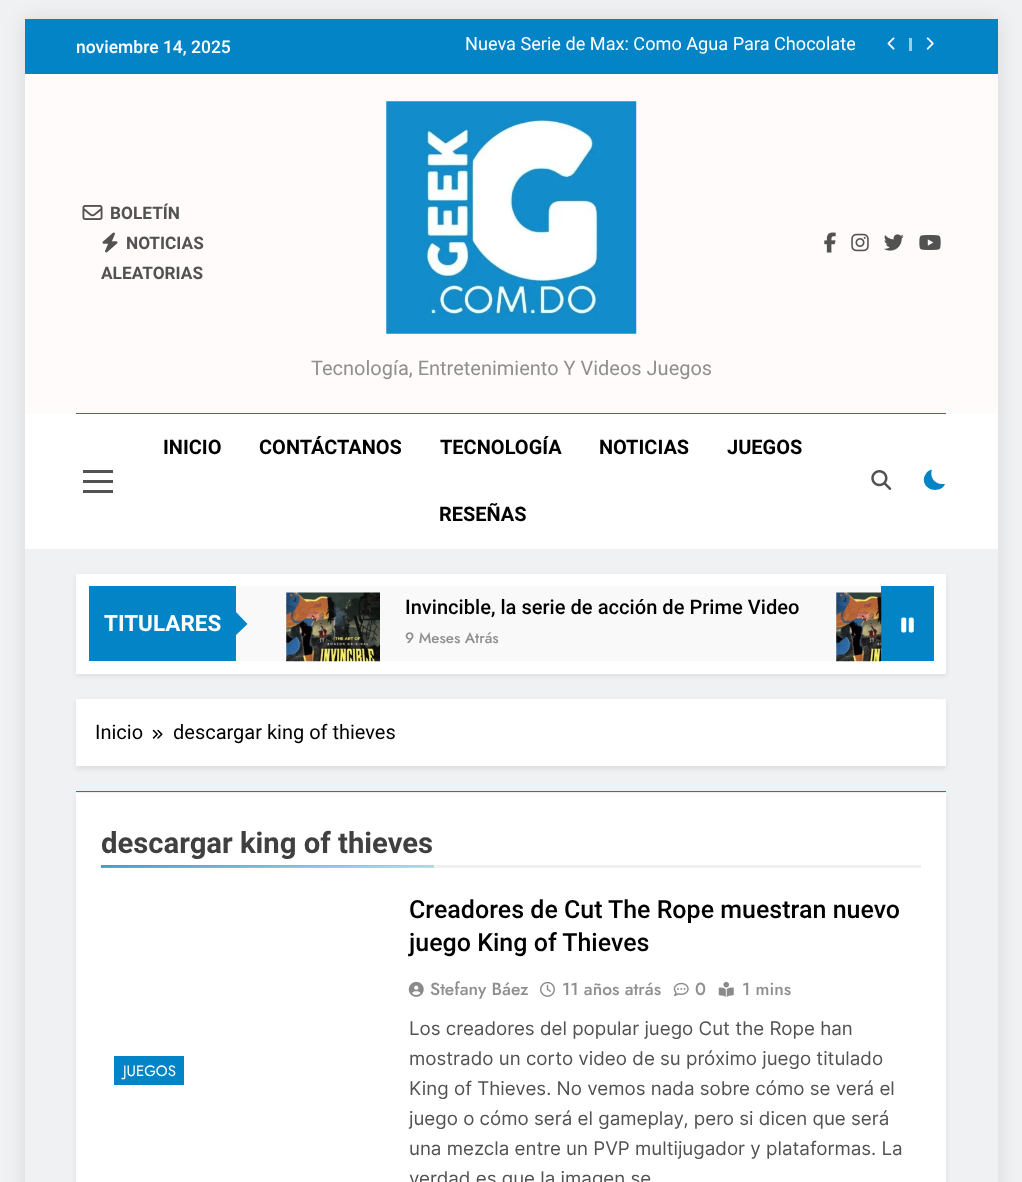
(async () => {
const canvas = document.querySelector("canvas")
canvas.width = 1022
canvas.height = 1182
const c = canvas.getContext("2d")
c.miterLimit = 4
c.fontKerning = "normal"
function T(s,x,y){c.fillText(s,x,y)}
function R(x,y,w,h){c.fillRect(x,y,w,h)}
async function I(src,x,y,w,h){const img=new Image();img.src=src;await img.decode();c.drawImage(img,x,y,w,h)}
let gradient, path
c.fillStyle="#f0f1f2"
R(0,0,1022,1182)
c.save()
path = new Path2D("M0 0h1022v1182h-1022zm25 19h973v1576h-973z")
c.clip(path,"evenodd")
c.fillStyle="#0000001a"
c.filter="blur(9.5px)"
c.beginPath()
c.rect(25,19,973,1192)
c.fill()
c.filter="none"
c.restore()
c.fillStyle="#0284c7"
R(25,19,973,55)
c.font="500 17.5px Roboto"
c.fillStyle="#fff"
T("noviembre 14, 2025",76,53)
c.save()
c.beginPath()
c.rect(338,35,517,20)
c.clip()
c.font="18.15px Roboto"
T("Nueva Serie de Max: Como Agua Para Chocolate",465,50)
c.restore()
await I("1.png",887,37,8,13)
c.fillStyle="#9acee9"
R(909,38,3,13)
await I("2.png",926,37,8,13)
c.fillStyle="#fffbfb"
R(25,74,973,339)
await I("3.png",82,205,21,15)
c.font="bold 17.25px Roboto"
c.fillStyle="#525252"
T("BOLETÍN",110,219)
await I("4.png",102,232,16,21)
T("NOTICIAS",126,249)
T("ALEATORIAS",101,279)
await I("5.png",824,232,12,21)
await I("6.png",851,233,18,19)
await I("7.png",884,234,20,17)
await I("8.png",919,235,22,15)
await I("9.png",386,101,251,233)
c.font="20px Roboto"
c.fillStyle="#8f8f8f"
T("Tecnología, Entretenimiento Y Videos Juegos",311,375)
c.fillStyle="#fff"
R(25,413,973,136)
c.fillStyle="#007bd9"
R(76,413,870,1)
c.fillStyle="#525252"
R(83,470,30,3)
R(83,480,30,3)
R(83,490,30,3)
c.font="bold 20px Roboto"
c.fillStyle="#000"
T("INICIO",163,454)
T("CONTÁCTANOS",259,454)
T("TECNOLOGÍA",440,454)
T("NOTICIAS",599,454)
T("JUEGOS",727,454)
T("RESEÑAS",439,521)
await I("10.png",871,470,21,20)
c.fillStyle="#0284c7"
path = new Path2D("M945 484h-2c-9.5 .5-13.5-8.5-11-14.5c-3 .5-5.5 2.5-6.5 5c-1.5 2-2 4.5-1.5 7c2 10 17 11.5 21 2.5z")
c.fill(path)
c.fillStyle="#00000014"
c.filter="blur(2.5px)"
c.beginPath()
c.rect(76,576,870,100)
c.fill()
c.filter="none"
c.fillStyle="#fff"
R(76,574,870,100)
c.fillStyle="#0284c7"
R(89,586,147,75)
c.font="bold 22.5px Roboto"
c.fillStyle="#fff"
T("TITULARES",104,631)
c.fillStyle="#f9f9f9"
R(236,586,645,75)
c.fillStyle="#0284c7"
path = new Path2D("M235 636v-25l12.5 13z")
c.fill(path)
await I("11.png",286,592,94,70)
c.font="500 20.1px Roboto"
c.fillStyle="#000"
T("Invincible, la serie de acción de Prime Video",405,614)
c.font="500 15px Jost"
c.fillStyle="#8f8f8f"
T("9 Meses Atrás",405,643)
c.fillStyle="#0284c7"
R(881,586,53,75)
await I("12.png",836,592,46,70)
await I("13.png",901,617,13,16)
c.fillStyle="#00000014"
c.filter="blur(2.5px)"
c.beginPath()
c.rect(76,701,870,68)
c.fill()
c.filter="none"
c.fillStyle="#fff"
R(76,699,870,67)
c.font="20px Roboto"
c.fillStyle="#000"
T("Inicio",95,739)
await I("14.png",152,729,11,10)
T("descargar king of thieves",173,739)
c.fillStyle="#00000014"
c.filter="blur(2.5px)"
c.beginPath()
c.rect(76,795,870,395)
c.fill()
c.filter="none"
c.fillStyle="#fff"
R(76,793,870,389)
c.fillStyle="#0284c7"
R(76,791,870,1)
c.fillStyle="#f0f0f0"
R(434,865,487,3)
c.font="bold 29.25px Roboto"
c.fillStyle="#404040"
T("descargar king of thieves",101,853)
gradient = c.createLinearGradient(267,853,268,879)
gradient.addColorStop(0,"#0284c7")
gradient.addColorStop(1,"#f0f0f0")
c.fillStyle = gradient
R(101,865,333,3)
c.fillStyle="#0284c7"
R(114,1056,70,29)
c.font="15px Jost"
c.fillStyle="#fff"
T("JUEGOS",123,1076)
c.font="500 25px Roboto"
c.fillStyle="#000"
T("Creadores de Cut The Rope muestran nuevo",409,918)
T("juego King of Thieves",409,951)
await I("15.png",408,981,16,16)
c.font="500 17.5px Jost"
c.fillStyle="#8f8f8f"
T("Stefany Báez",430,995)
await I("16.png",540,981,15,16)
T("11 años atrás",562,995)
await I("17.png",673,982,16,14)
T("0",695,995)
await I("18.png",718,981,16,16)
T("1 mins",742,995)
c.font="18.75px Inter"
c.fillStyle="#525252"
T("Los creadores del popular juego Cut the Rope han",409,1035)
T("mostrado un corto video de su próximo juego titulado",409,1065)
T("King of Thieves. No vemos nada sobre cómo se verá el",409,1095)
T("juego o cómo será el gameplay, pero si dicen que será",409,1125)
T("una mezcla entre un PVP multijugador y plataformas. La",409,1155)
T("verdad es que la imagen se",409,1185)
})()
